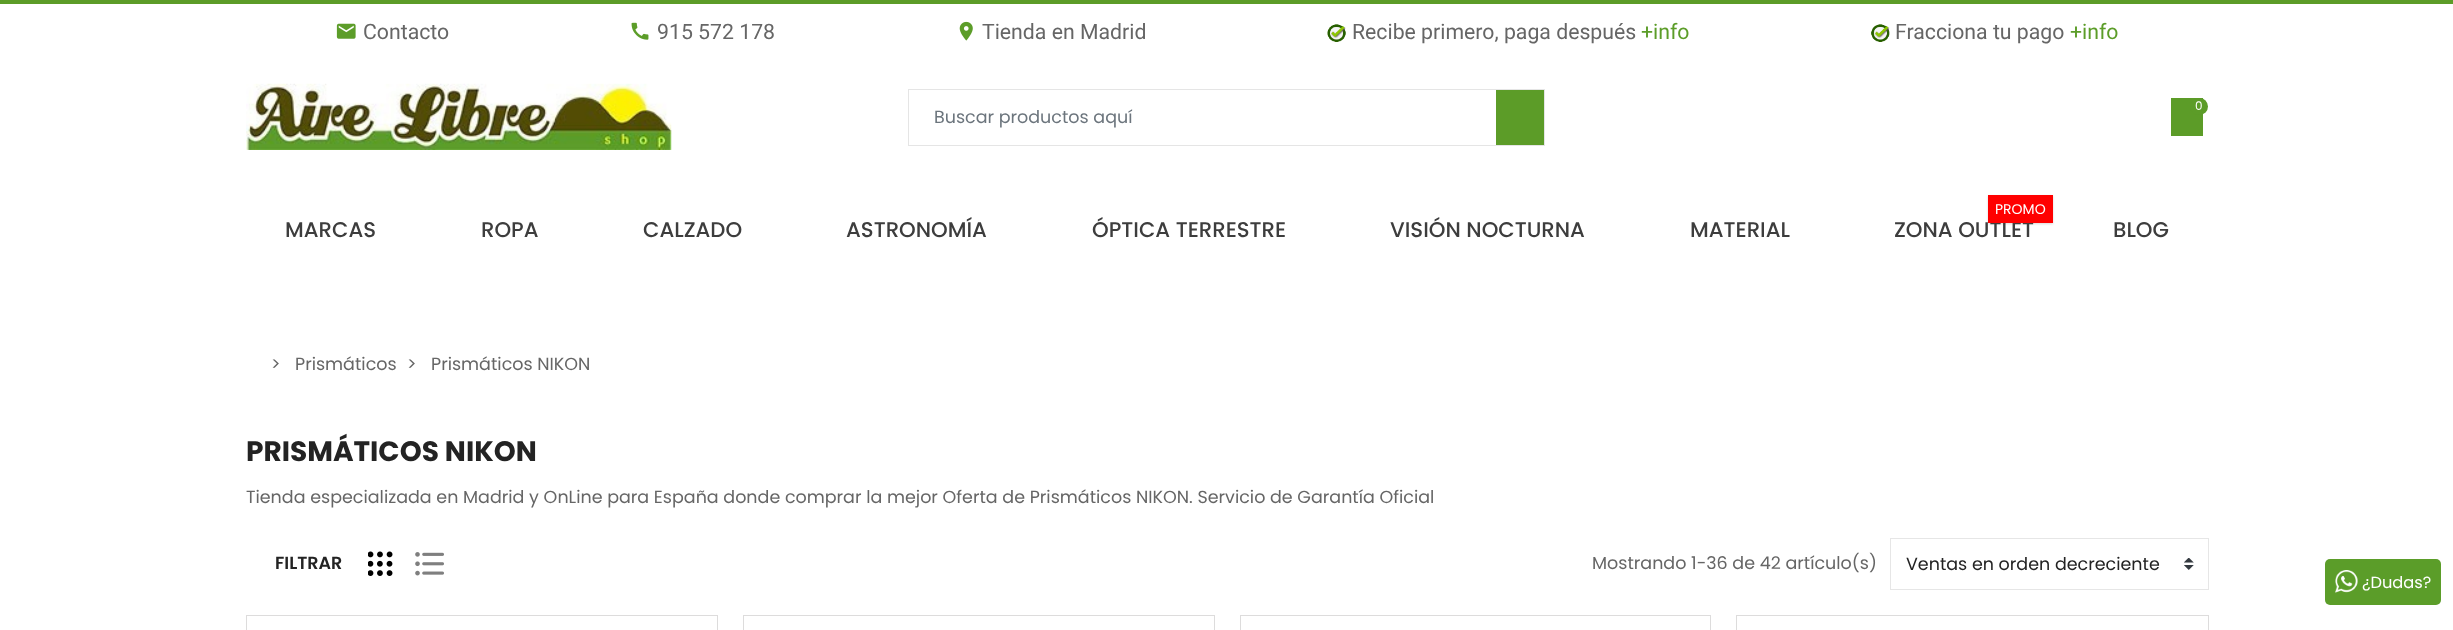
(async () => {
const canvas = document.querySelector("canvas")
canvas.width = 2453
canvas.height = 630
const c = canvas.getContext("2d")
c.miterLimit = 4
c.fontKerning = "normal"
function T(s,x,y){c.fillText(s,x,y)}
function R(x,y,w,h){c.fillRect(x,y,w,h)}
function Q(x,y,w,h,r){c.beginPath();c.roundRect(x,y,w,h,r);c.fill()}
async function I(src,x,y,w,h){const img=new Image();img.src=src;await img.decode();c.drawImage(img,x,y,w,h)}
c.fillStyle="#fff"
R(0,0,2453,630)
c.fillStyle="#5c9c28"
R(0,0,2453,4)
await I("1.png",336,23,20,16)
c.font="21.25px Roboto"
c.fillStyle="#666"
T("Contacto",363,39)
await I("2.png",631,22,18,18)
T("915 572 178",657,39)
await I("3.png",959,21,14,20)
T("Tienda en Madrid",982,39)
await I("4.png",1327,24,19,18)
T("Recibe primero, paga después",1352,39)
c.fillStyle="#5c9d29"
T("+info",1641,39)
await I("5.png",1871,24,19,18)
c.fillStyle="#666"
T("Fracciona tu pago",1895,39)
c.fillStyle="#5c9d29"
T("+info",2070,39)
await I("6.png",246,83,426,67)
c.fillStyle="#5c9c28"
R(2171,98,32,38)
Q(2190,98,18,17,8.5)
c.font="12px Poppins"
c.fillStyle="#fff"
T("0",2195,110)
c.strokeStyle="#e5e5e5"
c.strokeRect(908.5,89.5,636,56)
c.font="17.5px Poppins"
c.fillStyle="#6c757d"
T("Buscar productos aquí",934,123)
c.fillStyle="#5c9c28"
R(1496,90,48,55)
c.font="500 21.25px Poppins"
c.fillStyle="#3d3d3d"
T("MARCAS",285,237)
T("ROPA",481,237)
T("CALZADO",643,237)
T("ASTRONOMÍA",846,237)
T("ÓPTICA TERRESTRE",1092,237)
T("VISIÓN NOCTURNA",1390,237)
T("MATERIAL",1690,237)
c.fillStyle="#00000026"
c.filter="blur(1px)"
c.beginPath()
c.rect(1988,196,65,28)
c.fill()
c.filter="none"
c.fillStyle="#3d3d3d"
T("ZONA OUTLET",1894,237)
c.fillStyle="#f00"
R(1988,195,65,28)
c.font="14px Poppins"
c.fillStyle="#fff"
T("PROMO",1995,214)
c.font="500 21.25px Poppins"
c.fillStyle="#3d3d3d"
T("BLOG",2113,237)
c.font="17.5px Poppins"
c.fillStyle="#666"
T(">",271,370)
T("Prismáticos",295,370)
T(">",407,370)
T("Prismáticos NIKON",431,370)
c.font="bold 28px Poppins"
c.fillStyle="#232323"
T("PRISMÁTICOS NIKON",246,461)
c.font="17.5px Poppins"
c.fillStyle="#666"
T("Tienda especializada en Madrid y OnLine para España donde comprar la mejor Oferta de Prismáticos NIKON. Servicio de Garantía Oficial",246,503)
c.font="600 17.5px Poppins"
c.fillStyle="#232323"
T("FILTRAR",275,569)
await I("7.png",368,551,25,25)
await I("8.png",415,552,29,24)
c.font="17.5px Poppins"
c.fillStyle="#666"
T("Mostrando 1-36 de 42 artículo(s)",1592,569)
await I("9.png",2184,558,10,12)
c.strokeStyle="#e6e6e6"
c.strokeRect(1890.5,538.5,318,51)
c.fillStyle="#232323"
T("Ventas en orden decreciente",1906,570)
c.strokeStyle="#dddcdc"
c.strokeRect(246.5,615.5,471,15)
c.strokeRect(743.5,615.5,471,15)
c.strokeRect(1240.5,615.5,470,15)
c.strokeRect(1736.5,615.5,472,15)
c.fillStyle="#5b9d29"
Q(2325,559,116,46,5)
await I("10.png",2335,570,23,23)
c.font="16.25px Poppins"
c.fillStyle="#fff"
T("¿Dudas?",2362,588)
})()
